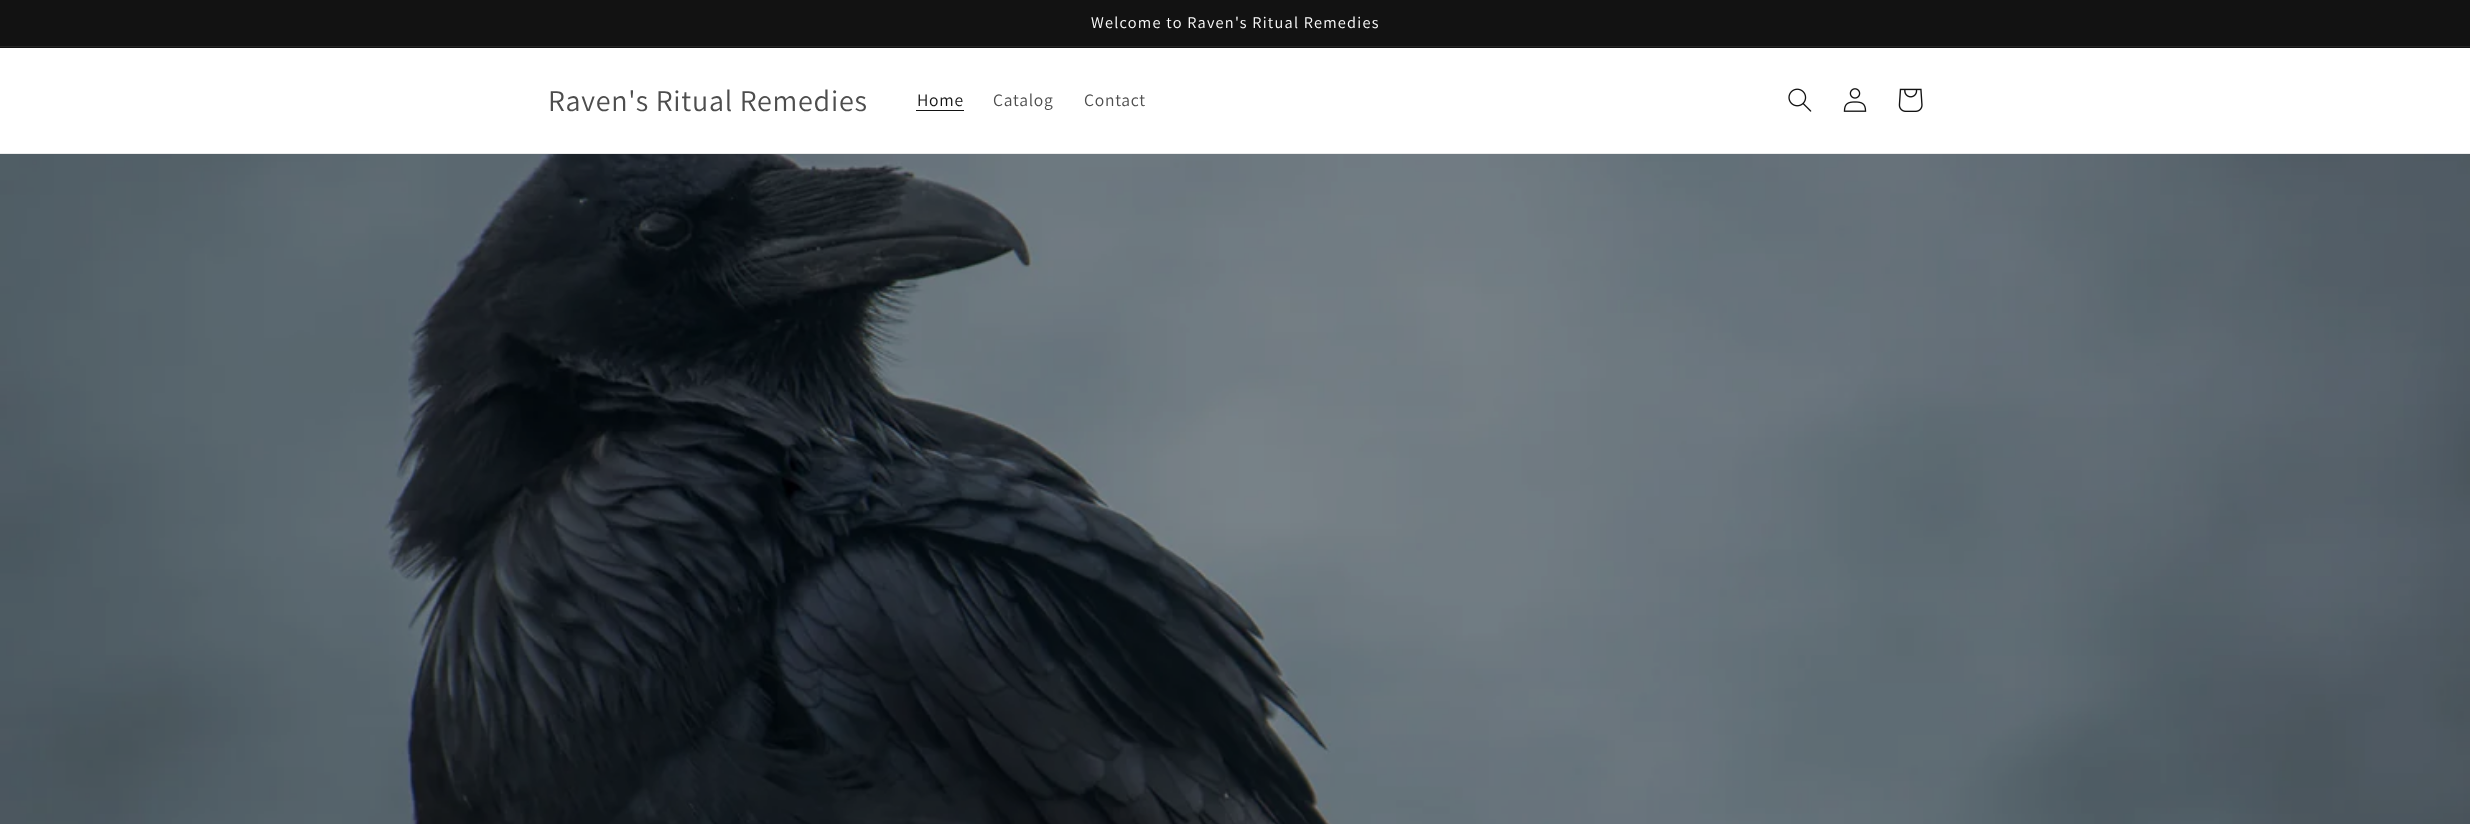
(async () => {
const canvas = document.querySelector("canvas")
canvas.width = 2470
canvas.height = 824
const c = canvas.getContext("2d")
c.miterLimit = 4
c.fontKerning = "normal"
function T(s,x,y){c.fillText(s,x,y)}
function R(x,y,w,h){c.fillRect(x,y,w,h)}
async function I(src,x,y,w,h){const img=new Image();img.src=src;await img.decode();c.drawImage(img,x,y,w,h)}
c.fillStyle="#fff"
R(0,0,2470,824)
c.fillStyle="#121212"
R(0,0,2470,48)
c.fillStyle="#252525"
R(0,46,2470,1)
c.letterSpacing="1.25px"
c.font="16.25px Assistant"
c.fillStyle="#fff"
T("Welcome to Raven's Ritual Remedies",1091,28)
c.fillStyle="#ececec"
R(0,153,2470,1)
c.letterSpacing="0.75px"
c.font="30px Assistant"
c.fillStyle="#4d4d4d"
T("Raven's Ritual Remedies",548,111)
c.font="17.5px Assistant"
c.fillStyle="#121212"
T("Home",917,106)
R(916,110,48,1)
c.fillStyle="#4d4d4d"
T("Catalog",993,106)
T("Contact",1084,106)
await I("1.png",1788,88,24,24)
await I("2.png",1843,88,24,24)
await I("3.png",1898,88,25,24)
await I("4.png",0,154,2470,670)
})()
